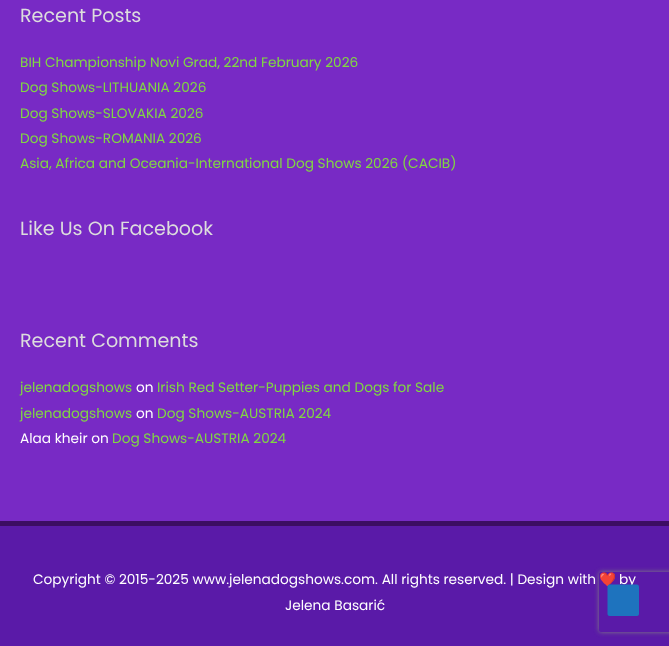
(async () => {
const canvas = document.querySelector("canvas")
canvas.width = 669
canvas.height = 646
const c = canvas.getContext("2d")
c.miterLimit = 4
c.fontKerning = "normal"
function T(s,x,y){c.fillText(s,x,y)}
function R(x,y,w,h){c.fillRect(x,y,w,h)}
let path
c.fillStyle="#782ac5"
R(0,0,669,646)
c.font="19.1px Poppins"
c.fillStyle="#ddd"
T("Recent Posts",20,22)
c.font="13.7px Poppins"
c.fillStyle="#81d742"
T("BIH Championship Novi Grad, 22nd February 2026",20,67)
T("Dog Shows-LITHUANIA 2026",20,92)
T("Dog Shows-SLOVAKIA 2026",20,118)
T("Dog Shows-ROMANIA 2026",20,143)
T("Asia, Africa and Oceania-International Dog Shows 2026 (CACIB)",20,168)
c.font="19.1px Poppins"
c.fillStyle="#ddd"
T("Like Us On Facebook",20,235)
T("Recent Comments",20,347)
c.font="13.7px Poppins"
c.fillStyle="#81d742"
T("jelenadogshows",20,392)
c.fillStyle="#fff"
T("on",136,392)
c.fillStyle="#81d742"
T("Irish Red Setter-Puppies and Dogs for Sale",157,392)
T("jelenadogshows",20,418)
c.fillStyle="#fff"
T("on",136,418)
c.fillStyle="#81d742"
T("Dog Shows-AUSTRIA 2024",157,418)
c.fillStyle="#fff"
T("Alaa kheir on",20,443)
c.fillStyle="#81d742"
T("Dog Shows-AUSTRIA 2024",112,443)
c.fillStyle="#3c0d63"
R(0,521,669,5)
c.fillStyle="#5a1aa8"
R(0,526,669,120)
c.fillStyle="#fff"
T("Copyright © 2015-2025 www.jelenadogshows.com. All rights reserved. | Design with",33,584)
c.font="13.7px Noto Color Emoji"
T("❤️",599,584)
c.font="13.7px Poppins"
T("by",619,584)
T("Jelena Basarić",285,610)
c.save()
path = new Path2D("M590 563h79v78h-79zm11 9h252c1 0 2 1 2 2v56c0 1-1 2-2 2h-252c-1 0-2-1-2-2v-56c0-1 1-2 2-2z")
c.clip(path,"evenodd")
c.fillStyle="#808080"
c.filter="blur(2.5px)"
c.beginPath()
c.roundRect(599,572,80,60,2)
c.fill()
c.filter="none"
c.restore()
c.fillStyle="#1e73be"
path = new Path2D("M637 616h-27.5c-1 0-2-1-2-2v-27.5c0-1 1-2 2-2h27.5c1 0 2 1 2 2v27.5c0 1-1 2-2 2z")
c.fill(path)
})()
